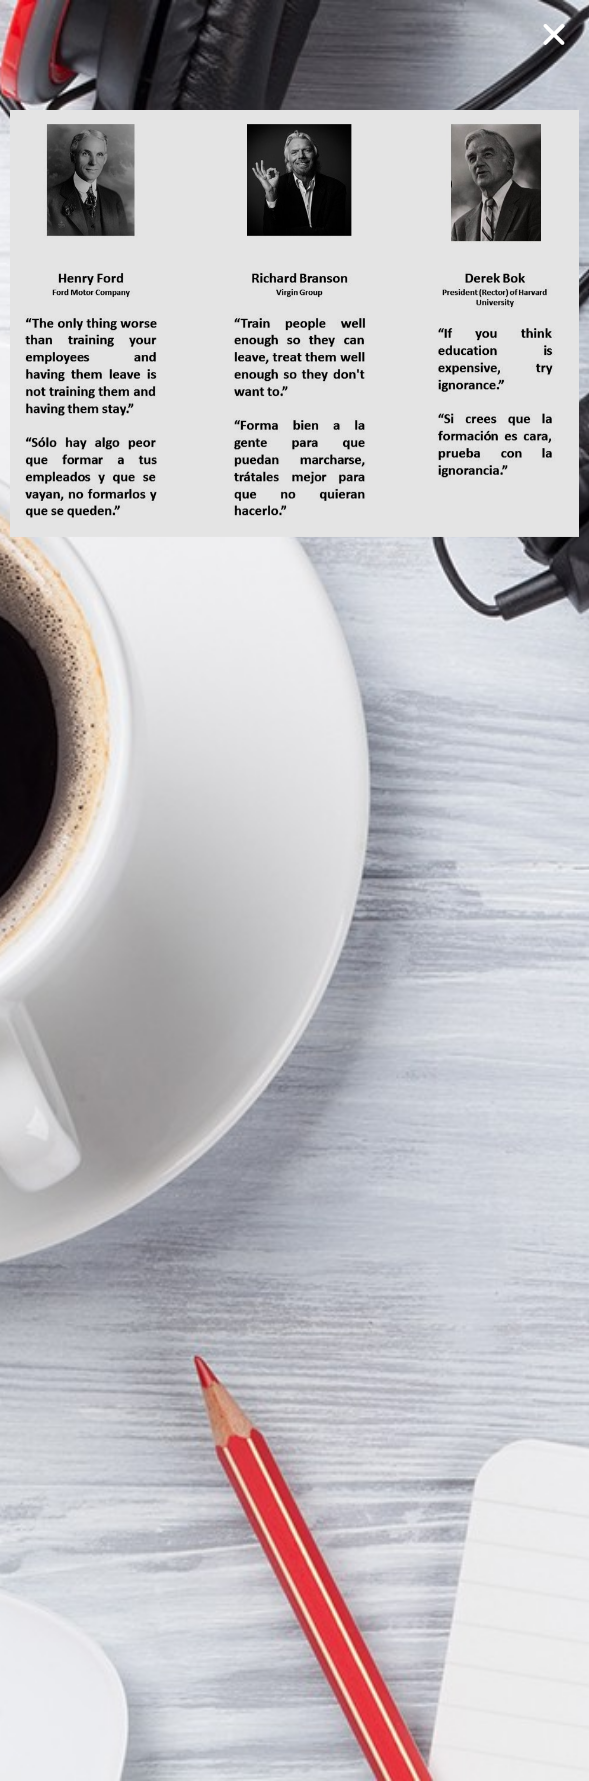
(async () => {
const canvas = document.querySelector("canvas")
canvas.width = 589
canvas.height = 1781
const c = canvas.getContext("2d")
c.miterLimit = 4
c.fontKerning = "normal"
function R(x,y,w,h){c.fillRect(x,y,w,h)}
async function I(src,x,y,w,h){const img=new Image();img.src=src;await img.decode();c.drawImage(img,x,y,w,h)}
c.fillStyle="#fff"
R(0,0,589,1781)
await I("1.png",0,0,589,1781)
await I("2.png",543,23,22,22)
await I("3.png",10,110,569,427)
})()
